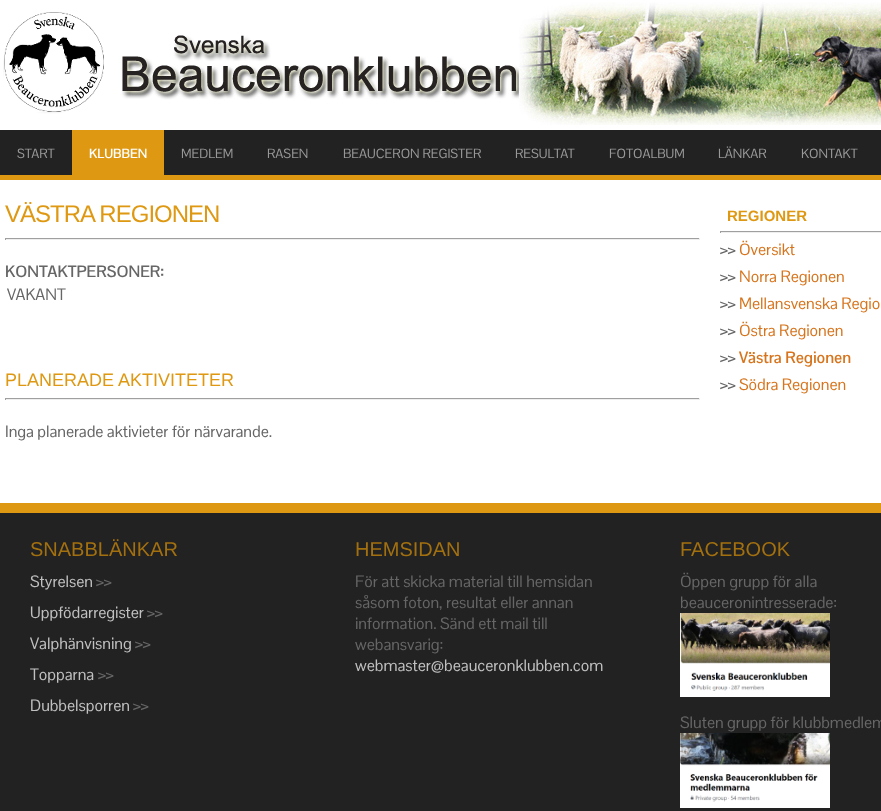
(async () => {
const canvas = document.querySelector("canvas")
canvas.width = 881
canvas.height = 811
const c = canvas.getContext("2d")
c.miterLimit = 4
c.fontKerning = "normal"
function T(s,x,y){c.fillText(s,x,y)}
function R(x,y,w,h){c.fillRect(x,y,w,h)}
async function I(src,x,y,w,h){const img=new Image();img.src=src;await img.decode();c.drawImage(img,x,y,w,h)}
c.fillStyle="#fff"
R(0,0,881,811)
await I("1.png",3,2,878,123)
c.fillStyle="#222"
R(0,130,881,45)
c.fillStyle="#de9812"
R(0,175,881,5)
c.font="13px Pontano Sans"
c.fillStyle="#999"
T("START",17,158)
c.fillStyle="#de9812"
R(72,130,92,45)
c.font="bold 13px Pontano Sans"
c.fillStyle="#fff"
T("KLUBBEN",89,158)
c.font="13px Pontano Sans"
c.fillStyle="#999"
T("MEDLEM",181,158)
T("RASEN",267,158)
T("BEAUCERON REGISTER",343,158)
T("RESULTAT",515,158)
T("FOTOALBUM",609,158)
T("LÄNKAR",718,158)
T("KONTAKT",801,158)
c.letterSpacing="-1px"
c.font="24px Liberation Sans"
c.fillStyle="#de9812"
T("VÄSTRA REGIONEN",5,222)
c.fillStyle="#9f9f9f"
R(5,238,695,1)
c.fillStyle="#eee"
R(699,238,1,2)
R(5,239,695,1)
c.fillStyle="#9f9f9f"
R(5,238,1,2)
c.letterSpacing="0px"
c.font="bold 16px Pontano Sans"
c.fillStyle="#666"
T("KONTAKTPERSONER:",5,277)
c.font="16px Pontano Sans"
T("VAKANT",7,300)
c.font="18px Liberation Sans"
c.fillStyle="#de9812"
T("PLANERADE AKTIVITETER",5,386)
c.fillStyle="#9f9f9f"
R(5,398,695,1)
c.fillStyle="#eee"
R(699,398,1,2)
R(5,399,695,1)
c.fillStyle="#9f9f9f"
R(5,398,1,2)
c.font="16px Pontano Sans"
c.fillStyle="#666"
T("Inga planerade aktivieter för närvarande.",5,437)
c.font="bold 15px Liberation Sans"
c.fillStyle="#de9812"
T("REGIONER",727,221)
c.fillStyle="#9f9f9f"
R(720,231,161,1)
c.fillStyle="#eee"
R(720,232,161,1)
c.fillStyle="#9f9f9f"
R(720,231,1,2)
c.font="16px Pontano Sans"
c.fillStyle="#666"
T(">>",720,255)
c.fillStyle="#d7751e"
T("Översikt",739,255)
c.fillStyle="#666"
T(">>",720,282)
c.fillStyle="#d7751e"
T("Norra Regionen",739,282)
c.fillStyle="#666"
T(">>",720,309)
c.fillStyle="#d7751e"
T("Mellansvenska Regio",739,309)
c.fillStyle="#666"
T(">>",720,336)
c.fillStyle="#d7751e"
T("Östra Regionen",739,336)
c.fillStyle="#666"
T(">>",720,363)
c.font="bold 16px Pontano Sans"
c.fillStyle="#d7751e"
T("Västra Regionen",739,363)
c.font="16px Pontano Sans"
c.fillStyle="#666"
T(">>",720,390)
c.fillStyle="#d7751e"
T("Södra Regionen",739,390)
c.fillStyle="#222"
R(0,513,881,298)
c.fillStyle="#de9812"
R(0,503,881,10)
c.font="20px Liberation Sans"
c.fillStyle="#a3700f"
T("SNABBLÄNKAR",30,556)
c.font="16px Pontano Sans"
c.fillStyle="#c0c0c0"
T("Styrelsen",30,587)
c.fillStyle="#666"
T(">>",96,587)
c.fillStyle="#c0c0c0"
T("Uppfödarregister",30,618)
c.fillStyle="#666"
T(">>",147,618)
c.fillStyle="#c0c0c0"
T("Valphänvisning",30,649)
c.fillStyle="#666"
T(">>",135,649)
c.fillStyle="#c0c0c0"
T("Topparna",30,680)
c.fillStyle="#666"
T(">>",98,680)
c.fillStyle="#c0c0c0"
T("Dubbelsporren",30,711)
c.fillStyle="#666"
T(">>",133,711)
c.font="20px Liberation Sans"
c.fillStyle="#a3700f"
T("HEMSIDAN",355,556)
c.font="16px Pontano Sans"
c.fillStyle="#666"
T("För att skicka material till hemsidan",355,587)
T("såsom foton, resultat eller annan",355,608)
T("information. Sänd ett mail till",355,629)
T("webansvarig:",355,650)
c.fillStyle="#c0c0c0"
T("webmaster@beauceronklubben.com",355,671)
c.font="20px Liberation Sans"
c.fillStyle="#a3700f"
T("FACEBOOK",680,556)
c.font="16px Pontano Sans"
c.fillStyle="#666"
T("Öppen grupp för alla",680,587)
T("beauceronintresserade:",680,608)
await I("2.png",680,613,150,84)
T("Sluten grupp för klubbmedlem",680,728)
await I("3.png",680,733,150,75)
})()
